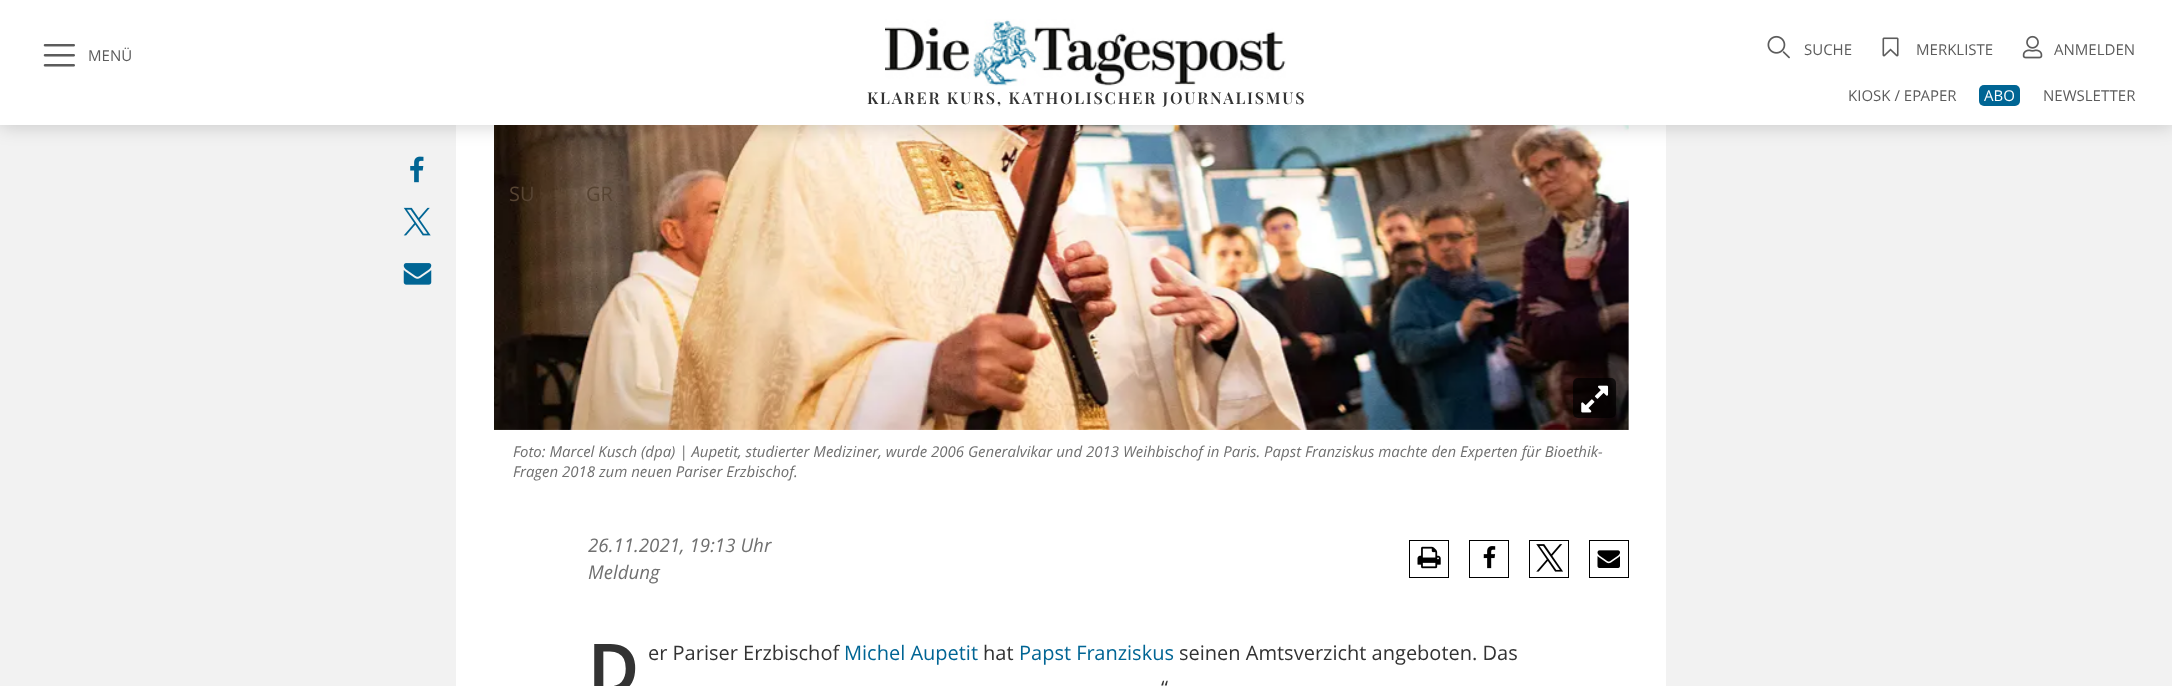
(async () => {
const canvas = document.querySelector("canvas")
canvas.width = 2172
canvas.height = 686
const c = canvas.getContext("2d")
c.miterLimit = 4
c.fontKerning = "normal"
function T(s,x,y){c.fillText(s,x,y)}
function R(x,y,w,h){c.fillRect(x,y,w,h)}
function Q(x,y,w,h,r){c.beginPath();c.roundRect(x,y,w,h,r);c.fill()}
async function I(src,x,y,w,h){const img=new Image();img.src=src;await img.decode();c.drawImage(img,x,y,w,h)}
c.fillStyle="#f2f2f2"
R(0,0,2172,686)
c.fillStyle="#fff"
R(456,125,1210,561)
await I("9.png",494,125,1135,305)
c.fillStyle="#00000033"
c.filter="blur(10px)"
c.beginPath()
c.rect(0,0,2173,125)
c.fill()
c.filter="none"
c.fillStyle="#fff"
R(0,0,2172,125)
await I("1.png",43,44,32,23)
c.font="15px Open Sans"
c.fillStyle="#5c5c5c"
T("MENÜ",88,61)
await I("2.png",1767,35,23,24)
T("SUCHE",1804,55)
await I("3.png",1882,37,17,20)
T("MERKLISTE",1916,55)
await I("4.png",2022,35,21,24)
T("ANMELDEN",2054,55)
T("KIOSK / EPAPER",1848,101)
c.fillStyle="#006594"
Q(1979,85,41,21,5)
c.fillStyle="#fff"
T("ABO",1984,101)
c.fillStyle="#5c5c5c"
T("NEWSLETTER",2043,101)
await I("5.png",885,19,401,67)
c.letterSpacing="1.8px"
c.font="600 16.25px Playfair Display"
c.fillStyle="#333"
T("KLARER KURS, KATHOLISCHER JOURNALISMUS",867,104)
c.letterSpacing="0px"
c.font="20px Open Sans"
c.fillStyle="#574433"
T("SU",509,201)
T("GR",586,201)
await I("6.png",410,156,14,27)
await I("7.png",403,207,28,29)
await I("8.png",403,263,29,22)
c.fillStyle="#000000b3"
Q(1573,378,43,40,5)
await I("10.png",1581,385,28,28)
c.font="italic 15px Open Sans"
c.fillStyle="#707070"
T("Foto: Marcel Kusch (dpa) | Aupetit, studierter Mediziner, wurde 2006 Generalvikar und 2013 Weihbischof in Paris. Papst Franziskus machte den Experten für Bioethik-",513,457)
T("Fragen 2018 zum neuen Pariser Erzbischof.",513,477)
c.font="italic 18.75px Open Sans"
T("26.11.2021, 19:13 Uhr",588,552)
T("Meldung",588,579)
c.strokeStyle="#000"
c.strokeRect(1409.5,540.5,39,37)
await I("11.png",1417,546,24,23)
c.strokeRect(1469.5,540.5,39,37)
await I("12.png",1483,546,13,23)
c.strokeRect(1529.5,540.5,39,37)
await I("13.png",1536,544,27,28)
c.strokeRect(1589.5,540.5,39,37)
await I("14.png",1597,550,23,18)
c.font="600 70px Noto Sans"
c.fillStyle="#333"
T("D",588,694)
c.font="20px Open Sans"
T("er Pariser Erzbischof",648,660)
c.fillStyle="#006594"
T("Michel Aupetit",844,660)
c.fillStyle="#333"
T("hat",983,660)
c.fillStyle="#006594"
T("Papst Franziskus",1019,660)
c.fillStyle="#333"
T("seinen Amtsverzicht angeboten. Das",1179,660)
T("“",1161,695)
})()
